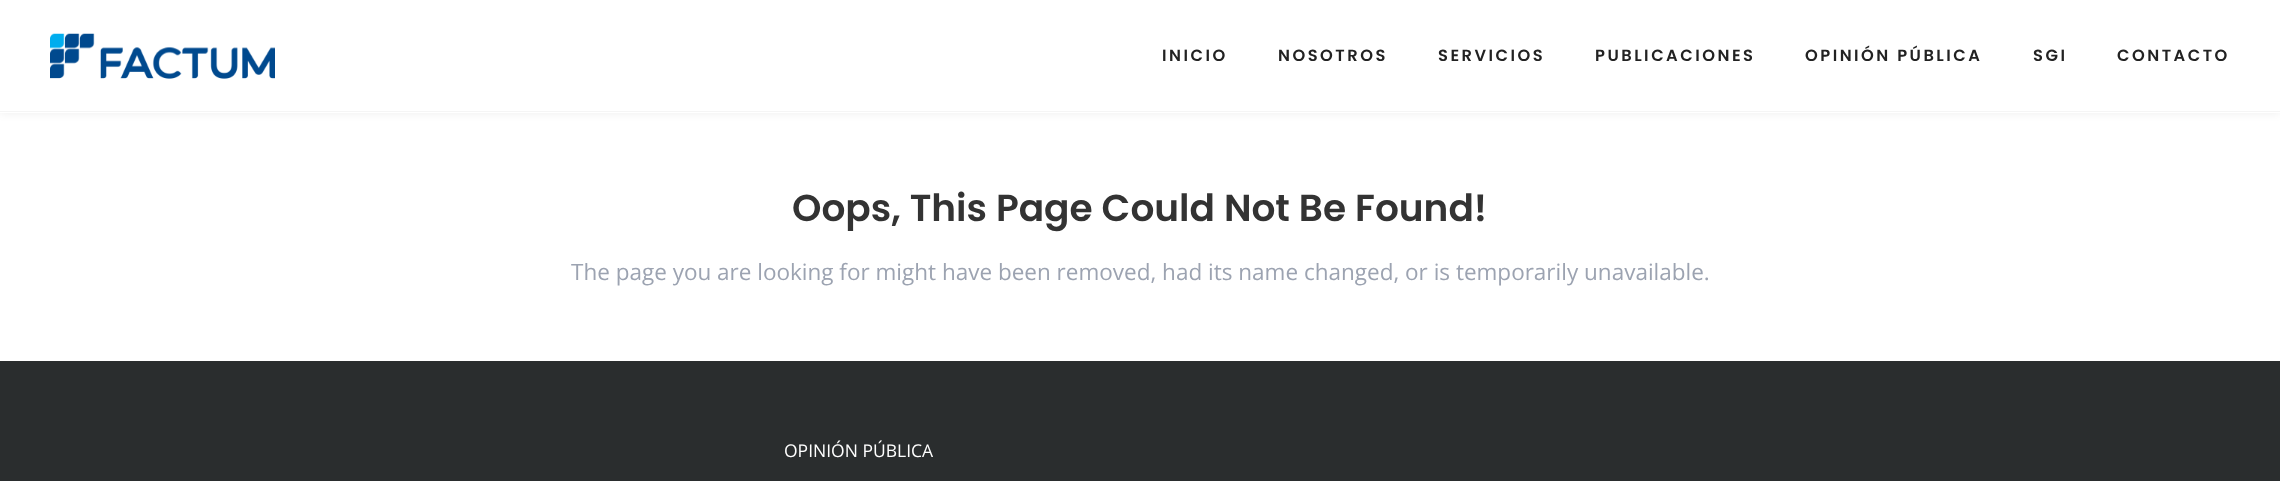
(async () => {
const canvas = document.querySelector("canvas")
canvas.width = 2280
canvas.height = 481
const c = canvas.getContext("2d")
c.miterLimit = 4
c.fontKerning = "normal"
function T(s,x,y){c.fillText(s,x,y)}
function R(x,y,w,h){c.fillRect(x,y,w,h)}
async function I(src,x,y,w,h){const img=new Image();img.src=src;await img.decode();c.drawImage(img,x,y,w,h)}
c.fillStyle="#fff"
R(0,0,2280,481)
c.fillStyle="#00000012"
c.filter="blur(5px)"
c.beginPath()
c.rect(0,0,2280,113)
c.fill()
c.filter="none"
c.fillStyle="#fff"
R(0,0,2280,113)
c.fillStyle="#f5f5f5"
R(0,111,2280,1)
await I("1.png",50,33,225,46)
c.letterSpacing="2.5px"
c.font="600 16.25px Poppins"
c.fillStyle="#222"
T("INICIO",1162,61)
T("NOSOTROS",1278,61)
T("SERVICIOS",1438,61)
T("PUBLICACIONES",1595,61)
T("OPINIÓN PÚBLICA",1805,61)
T("SGI",2033,61)
T("CONTACTO",2117,61)
c.letterSpacing="0px"
c.font="600 37.5px Poppins"
c.fillStyle="#333"
T("Oops, This Page Could Not Be Found!",792,221)
c.font="22.5px Open Sans"
c.fillStyle="#9ca3b1"
T("The page you are looking for might have been removed, had its name changed, or is temporarily unavailable.",571,280)
c.fillStyle="#2a2d2e"
R(0,361,2280,120)
c.font="17.5px Open Sans"
c.fillStyle="#fff"
T("OPINIÓN PÚBLICA",784,457)
})()
